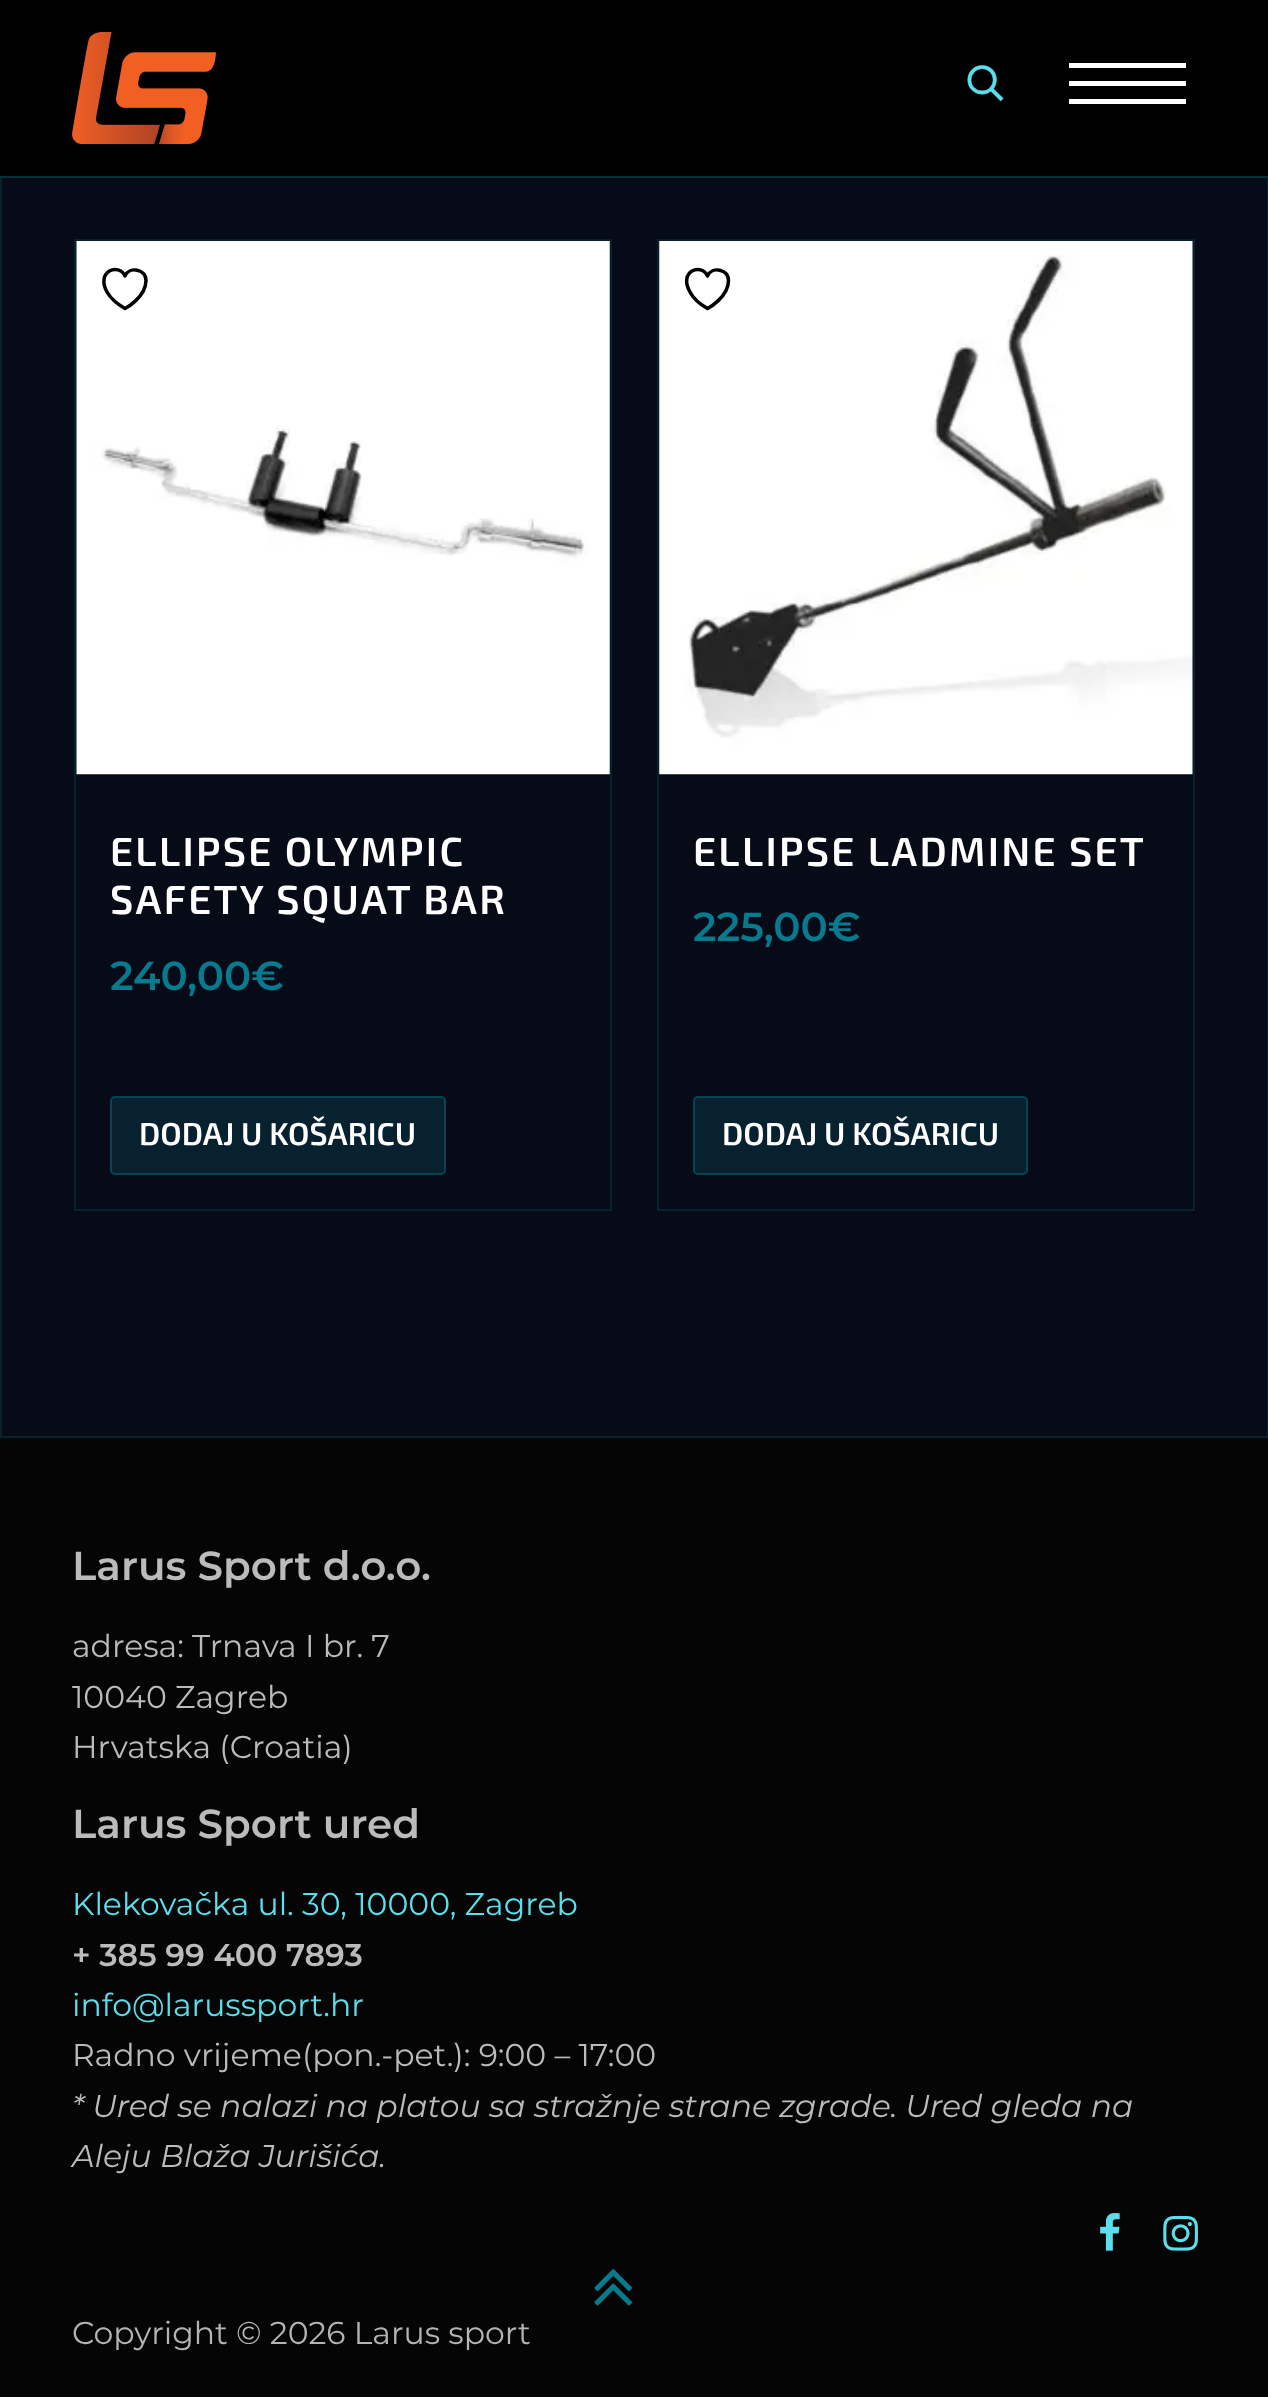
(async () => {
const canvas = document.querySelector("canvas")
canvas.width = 1268
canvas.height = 2397
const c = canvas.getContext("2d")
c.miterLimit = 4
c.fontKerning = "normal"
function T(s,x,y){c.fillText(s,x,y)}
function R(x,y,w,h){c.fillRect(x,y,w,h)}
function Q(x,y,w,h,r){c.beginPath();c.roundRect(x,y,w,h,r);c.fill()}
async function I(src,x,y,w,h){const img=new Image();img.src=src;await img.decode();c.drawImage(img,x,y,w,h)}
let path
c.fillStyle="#070a17"
R(0,0,1268,2397)
c.strokeStyle="#07212f"
c.lineWidth=2
c.strokeRect(1,-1,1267,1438)
c.fillStyle="#000"
R(0,0,1268,176)
c.fillStyle="#023138"
R(0,176,1268,2)
await I("1.png",72,32,144,112)
await I("2.png",967,65,37,37)
c.fillStyle="#fff"
R(1069,81,117,5)
R(1069,63,117,5)
R(1069,99,117,5)
c.strokeRect(75,240,536,970)
await I("3.png",76,241,534,534)
path = new Path2D("M146 280.5c0-11.5-16.5-14.5-21-4.5c-6-13.5-29.5-5-18 16c4 7 11 12.5 18 16.5c0 0 21-11 21-28z")
c.strokeStyle="#000"
c.lineWidth=3.5
c.lineCap="round"
c.lineJoin="round"
c.stroke(path)
c.letterSpacing="2.25px"
c.font="600 40.5px 'Exo 2'"
T("ELLIPSE OLYMPIC",110,866)
T("SAFETY SQUAT BAR",110,914)
c.letterSpacing="0px"
c.font="600 40.5px Montserrat"
c.fillStyle="#067b8d"
T("240,00€",110,990)
c.fillStyle="#07212f"
Q(110,1096,336,79,5)
c.beginPath()
c.roundRect(111,1097,334,77,4)
c.strokeStyle="#067b8d66"
c.lineWidth=2
c.lineJoin="miter"
c.stroke()
c.font="600 31.5px 'Exo 2'"
c.fillStyle="#fff"
T("DODAJ U KOŠARICU",139,1145)
c.strokeStyle="#07212f"
c.strokeRect(658,240,536,970)
await I("4.png",659,241,534,534)
path = new Path2D("M728.5 280.5c0-11.5-16.5-14.5-21-4.5c-6-13.5-29.5-5-17.5 16c3.5 7 10.5 12.5 17.5 16.5c0 0 21-11 21-28z")
c.strokeStyle="#000"
c.lineWidth=3.5
c.lineJoin="round"
c.stroke(path)
c.letterSpacing="2.25px"
c.font="600 40.5px 'Exo 2'"
T("ELLIPSE LADMINE SET",693,866)
c.letterSpacing="0px"
c.font="600 40.5px Montserrat"
c.fillStyle="#067b8d"
T("225,00€",693,941)
c.fillStyle="#07212f"
Q(693,1096,335,79,5)
c.beginPath()
c.roundRect(694,1097,333,77,4)
c.strokeStyle="#067b8d66"
c.lineWidth=2
c.lineJoin="miter"
c.stroke()
c.font="600 31.5px 'Exo 2'"
c.fillStyle="#fff"
T("DODAJ U KOŠARICU",722,1145)
c.fillStyle="#050505"
R(0,1438,1268,959)
c.font="600 40.5px Montserrat"
c.fillStyle="#bbb"
T("Larus Sport d.o.o.",72,1580)
c.font="31.5px Montserrat"
T("adresa: Trnava I br. 7",72,1657)
T("10040 Zagreb",72,1708)
T("Hrvatska (Croatia)",72,1758)
c.font="600 40.5px Montserrat"
T("Larus Sport ured",72,1838)
c.font="31.5px Montserrat"
c.fillStyle="#5bdfed"
T("Klekovačka ul. 30, 10000, Zagreb",72,1915)
c.font="600 31.5px Montserrat"
c.fillStyle="#bbb"
T("+ 385 99 400 7893",72,1966)
c.font="31.5px Montserrat"
c.fillStyle="#5bdfed"
T("info@larussport.hr",72,2016)
c.fillStyle="#bbb"
T("Radno vrijeme(pon.-pet.): 9:00 – 17:00",72,2066)
c.font="italic 100 31.5px Montserrat"
T("* Ured se nalazi na platou sa stražnje strane zgrade. Ured gleda na",72,2117)
T("Aleju Blaža Jurišića.",72,2167)
await I("5.png",1100,2213,20,38)
await I("6.png",1163,2215,35,36)
await I("7.png",594,2269,38,37)
c.font="31.5px Montserrat"
c.fillStyle="#b4b4b4"
T("Copyright © 2026 Larus sport",72,2344)
})()
